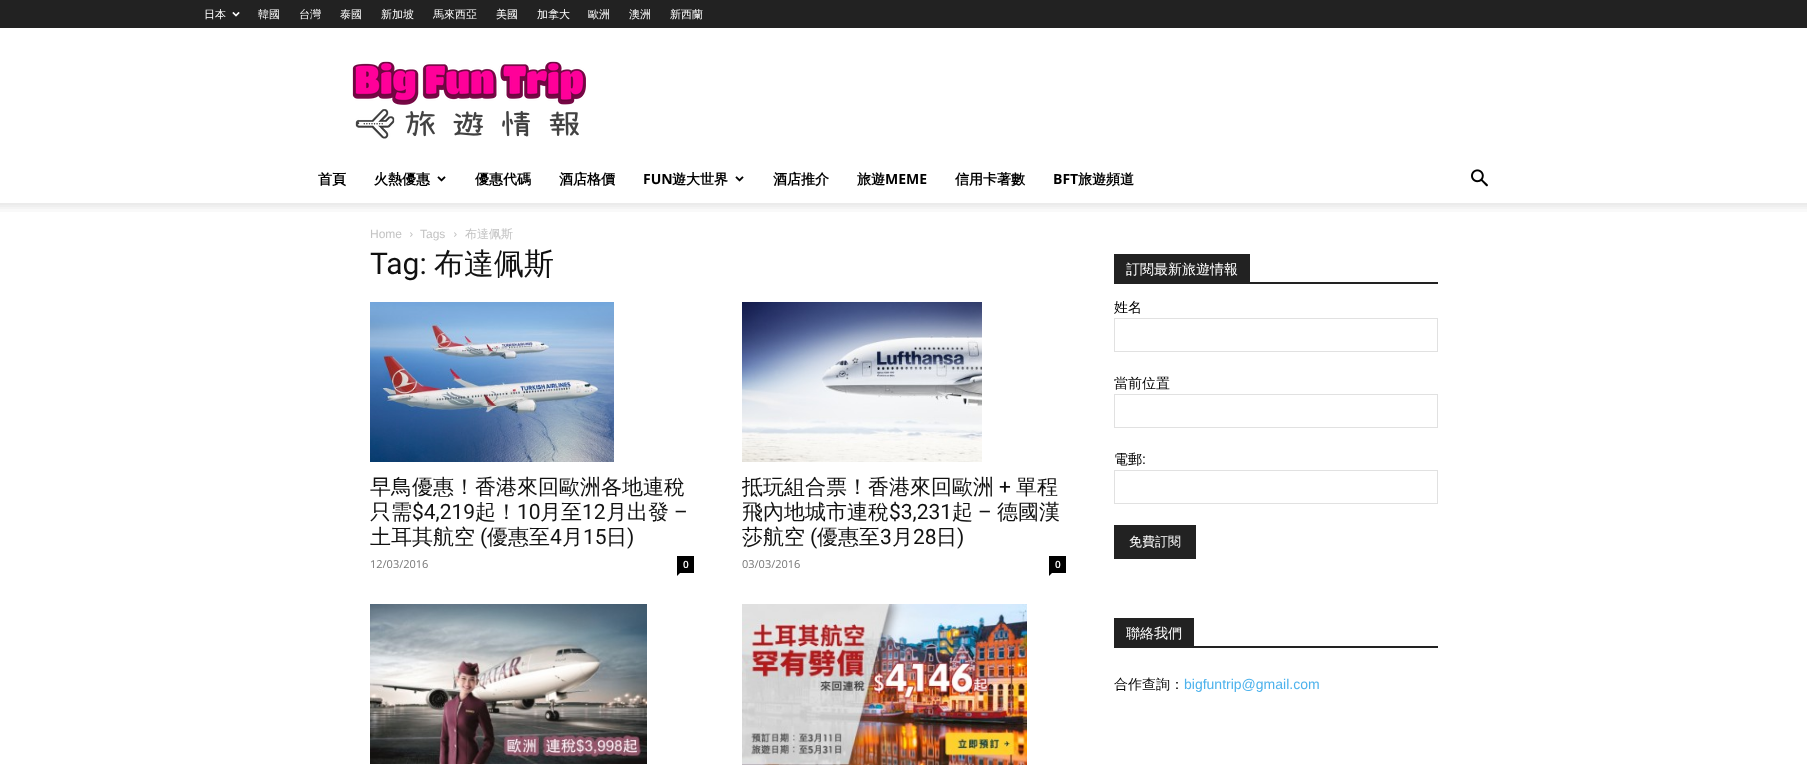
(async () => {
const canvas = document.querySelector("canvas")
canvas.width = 1807
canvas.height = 775
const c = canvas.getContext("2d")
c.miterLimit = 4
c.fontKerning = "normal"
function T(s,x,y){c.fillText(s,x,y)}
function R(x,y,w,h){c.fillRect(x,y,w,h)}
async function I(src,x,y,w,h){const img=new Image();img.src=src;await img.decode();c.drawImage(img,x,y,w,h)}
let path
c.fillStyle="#fff"
R(0,0,1807,775)
c.fillStyle="#222"
R(0,0,1807,28)
c.font="500 11px WenQuanYi Zen Hei"
c.fillStyle="#fff"
T("日本",204,18)
await I("1.png",232,12,8,5)
T("韓國",258,18)
T("台灣",299,18)
T("泰國",340,18)
T("新加坡",381,18)
T("馬來西亞",433,18)
T("美國",496,18)
T("加拿大",537,18)
T("歐洲",588,18)
T("澳洲",629,18)
T("新西蘭",670,18)
await I("2.png",352,61,234,78)
c.font="bold 14px WenQuanYi Zen Hei"
c.fillStyle="#000"
T("首頁",318,184)
T("火熱優惠",374,184)
await I("3.png",437,176,9,6)
T("優惠代碼",475,184)
T("酒店格價",559,184)
c.font="bold 14px Open Sans"
T("FUN",643,184)
c.font="bold 14px WenQuanYi Zen Hei"
T("遊大世界",672,184)
await I("3.png",735,176,9,6)
T("酒店推介",773,184)
T("旅遊",857,184)
c.font="bold 14px Open Sans"
T("MEME",885,184)
c.font="bold 14px WenQuanYi Zen Hei"
T("信用卡著數",955,184)
c.font="bold 14px Open Sans"
T("BFT",1053,184)
c.font="bold 14px WenQuanYi Zen Hei"
T("旅遊頻道",1078,184)
await I("4.png",1471,169,17,18)
await I("5.png",0,203,1807,9)
c.font="12px Liberation Sans"
c.fillStyle="#c3c3c3"
T("Home",370,238)
await I("6.png",410,232,3,5)
T("Tags",420,238)
await I("6.png",454,232,3,5)
c.font="500 12px WenQuanYi Zen Hei"
T("布達佩斯",465,238)
c.font="30px Roboto"
c.fillStyle="#111"
T("Tag:",370,274)
c.font="500 30px WenQuanYi Zen Hei"
T("布達佩斯",434,274)
await I("7.png",370,302,244,160)
c.font="500 21px WenQuanYi Zen Hei"
T("早鳥優惠！香港來回歐洲各地連稅",370,494)
T("只需",370,519)
c.font="21px Roboto"
T("$4,219",412,519)
c.font="500 21px WenQuanYi Zen Hei"
T("起！",475,519)
c.font="21px Roboto"
T("10",517,519)
c.font="500 21px WenQuanYi Zen Hei"
T("月至",540,519)
c.font="21px Roboto"
T("12",582,519)
c.font="500 21px WenQuanYi Zen Hei"
T("月出發",606,519)
c.font="21px Roboto"
T("–",674,519)
c.font="500 21px WenQuanYi Zen Hei"
T("土耳其航空",370,544)
c.font="21px Roboto"
T("(",480,544)
c.font="500 21px WenQuanYi Zen Hei"
T("優惠至",487,544)
c.font="21px Roboto"
T("4",550,544)
c.font="500 21px WenQuanYi Zen Hei"
T("月",562,544)
c.font="21px Roboto"
T("15",583,544)
c.font="500 21px WenQuanYi Zen Hei"
T("日",606,544)
c.font="21px Roboto"
T(")",627,544)
c.font="11px Open Sans"
c.fillStyle="#767676"
T("12/03/2016",370,568)
c.fillStyle="#000"
R(677,556,17,17)
c.font="600 10px Open Sans"
c.fillStyle="#fff"
T("0",683,568)
c.fillStyle="#000"
path = new Path2D("M677 573h3l-3 3z")
c.fill(path)
await I("8.png",742,302,240,160)
c.font="500 21px WenQuanYi Zen Hei"
c.fillStyle="#111"
T("抵玩組合票！香港來回歐洲",742,494)
c.font="21px Roboto"
T("+",999,494)
c.font="500 21px WenQuanYi Zen Hei"
T("單程",1016,494)
T("飛內地城市連稅",742,519)
c.font="21px Roboto"
T("$3,231",889,519)
c.font="500 21px WenQuanYi Zen Hei"
T("起",952,519)
c.font="21px Roboto"
T("–",978,519)
c.font="500 21px WenQuanYi Zen Hei"
T("德國漢",997,519)
T("莎航空",742,544)
c.font="21px Roboto"
T("(",810,544)
c.font="500 21px WenQuanYi Zen Hei"
T("優惠至",817,544)
c.font="21px Roboto"
T("3",880,544)
c.font="500 21px WenQuanYi Zen Hei"
T("月",892,544)
c.font="21px Roboto"
T("28",913,544)
c.font="500 21px WenQuanYi Zen Hei"
T("日",936,544)
c.font="21px Roboto"
T(")",957,544)
c.font="11px Open Sans"
c.fillStyle="#767676"
T("03/03/2016",742,568)
c.fillStyle="#000"
R(1049,556,17,17)
c.font="600 10px Open Sans"
c.fillStyle="#fff"
T("0",1055,568)
c.fillStyle="#000"
path = new Path2D("M1049 573h3l-3 3z")
c.fill(path)
await I("9.png",370,604,277,160)
await I("10.png",742,604,285,161)
c.fillStyle="#222"
R(1114,282,324,2)
R(1114,254,136,28)
c.font="500 14px WenQuanYi Zen Hei"
c.fillStyle="#fff"
T("訂閱最新旅遊情報",1126,274)
c.fillStyle="#000"
T("姓名",1114,312)
c.strokeStyle="#e1e1e1"
c.strokeRect(1114.5,318.5,323,33)
T("當前位置",1114,388)
c.strokeRect(1114.5,394.5,323,33)
T("電郵",1114,464)
c.font="14px Liberation Sans"
T(":",1142,464)
c.strokeRect(1114.5,470.5,323,33)
c.fillStyle="#222"
R(1114,525,82,34)
c.font="500 13px WenQuanYi Zen Hei"
c.fillStyle="#fff"
T("免費訂閱",1129,546)
c.fillStyle="#222"
R(1114,646,324,2)
R(1114,618,80,28)
c.font="500 14px WenQuanYi Zen Hei"
c.fillStyle="#fff"
T("聯絡我們",1126,638)
c.fillStyle="#000"
T("合作查詢：",1114,689)
c.font="14px Liberation Sans"
c.fillStyle="#4db2ec"
T("bigfuntrip@gmail.com",1184,689)
})()
